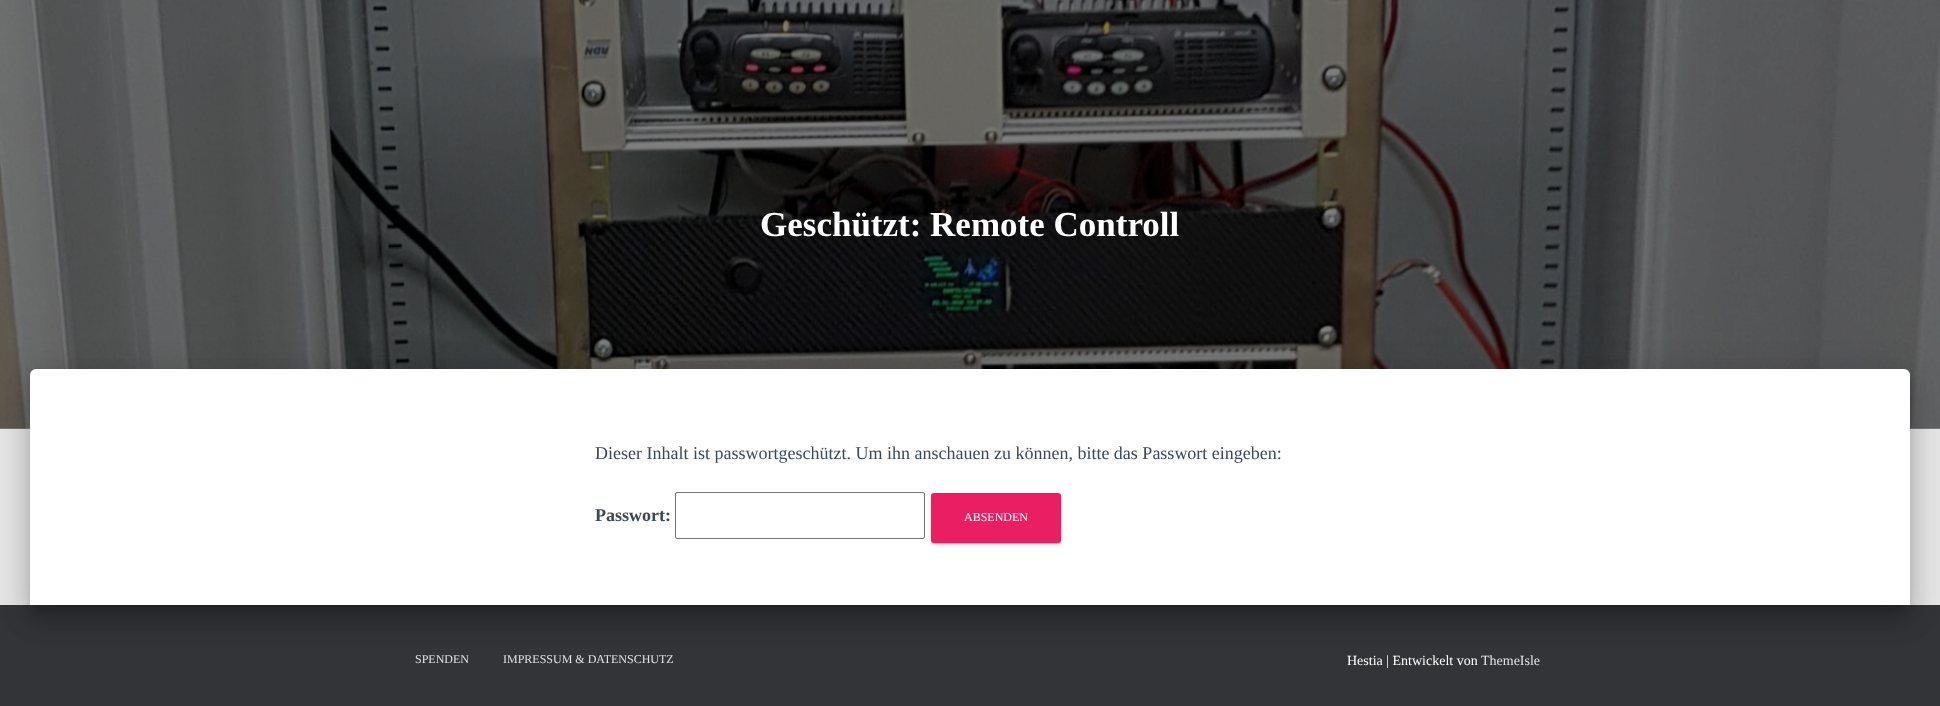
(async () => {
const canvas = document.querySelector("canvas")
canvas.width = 1940
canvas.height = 706
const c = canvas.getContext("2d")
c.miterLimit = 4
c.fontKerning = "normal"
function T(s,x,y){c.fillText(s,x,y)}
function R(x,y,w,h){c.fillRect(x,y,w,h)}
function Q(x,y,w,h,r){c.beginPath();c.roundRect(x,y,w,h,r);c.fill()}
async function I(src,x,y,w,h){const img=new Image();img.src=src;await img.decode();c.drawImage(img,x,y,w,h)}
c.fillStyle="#e5e5e5"
R(0,0,1940,706)
await I("1.png",0,0,1940,429)
c.font="bold 35px Liberation Serif"
c.fillStyle="#fff"
T("Geschützt: Remote Controll",760,236)
c.fillStyle="#323437"
R(0,605,1940,101)
c.fillStyle="#00000033"
c.filter="blur(5px)"
c.beginPath()
c.roundRect(35,382,1870,226,1)
c.fill()
c.filter="none"
c.fillStyle="#0000001f"
c.filter="blur(15px)"
c.beginPath()
c.roundRect(25,370,1890,246,11)
c.fill()
c.filter="none"
c.fillStyle="#00000024"
c.filter="blur(12px)"
c.beginPath()
c.roundRect(28,383,1884,240,8)
c.fill()
c.filter="none"
c.fillStyle="#fff"
c.beginPath()
c.roundRect(30,369,1880,236,[6,6,0,0])
c.fill()
c.font="18px Liberation Serif"
c.fillStyle="#3c4858"
T("Dieser Inhalt ist passwortgeschützt. Um ihn anschauen zu können, bitte das Passwort eingeben:",595,459)
c.font="bold 18px Liberation Serif"
T("Passwort:",595,521)
c.beginPath()
c.roundRect(675.5,492.5,249,46,1.5)
c.strokeStyle="#767676"
c.stroke()
c.fillStyle="#e91e631f"
c.filter="blur(2.5px)"
c.beginPath()
c.roundRect(931,494,130,50,3)
c.fill()
c.filter="none"
c.fillStyle="#e91e6333"
c.filter="blur(0.5px)"
c.beginPath()
c.roundRect(933,498,126,46,1)
c.fill()
c.filter="none"
c.fillStyle="#e91e6324"
c.filter="blur(1px)"
c.beginPath()
c.roundRect(931,495,130,50,3)
c.fill()
c.filter="none"
c.fillStyle="#e91e63"
Q(931,493,130,50,3)
c.font="12px Liberation Serif"
c.fillStyle="#fff"
T("ABSENDEN",964,521)
c.fillStyle="#e2e3e3"
T("SPENDEN",415,663)
T("IMPRESSUM & DATENSCHUTZ",503,663)
c.font="14px Liberation Serif"
c.fillStyle="#fff"
T("Hestia | Entwickelt von",1347,665)
c.fillStyle="#e2e3e3"
T("ThemeIsle",1481,665)
})()
